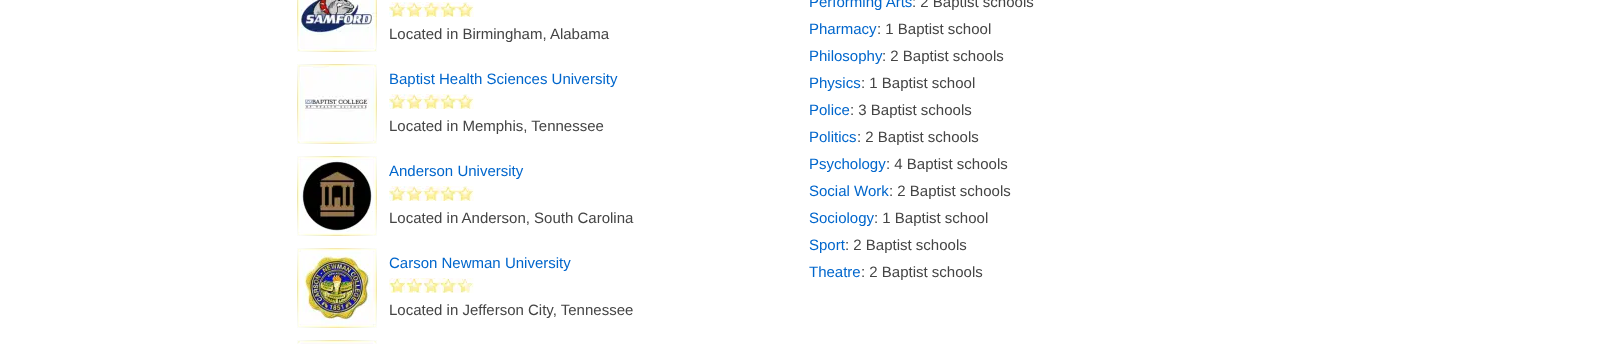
(async () => {
const canvas = document.querySelector("canvas")
canvas.width = 1618
canvas.height = 344
const c = canvas.getContext("2d")
c.miterLimit = 4
c.fontKerning = "normal"
function T(s,x,y){c.fillText(s,x,y)}
function R(x,y,w,h){c.fillRect(x,y,w,h)}
async function I(src,x,y,w,h){const img=new Image();img.src=src;await img.decode();c.drawImage(img,x,y,w,h)}
c.fillStyle="#fff"
R(0,0,1618,344)
await I("1.png",297,0,80,52)
await I("2.png",389,2,85,15)
c.font="15px Liberation Sans"
c.fillStyle="#444"
T("Located in Birmingham, Alabama",389,39)
await I("3.png",297,64,80,80)
c.fillStyle="#06c"
T("Baptist Health Sciences University",389,84)
await I("2.png",389,94,85,15)
c.fillStyle="#444"
T("Located in Memphis, Tennessee",389,131)
await I("4.png",297,156,80,80)
c.fillStyle="#06c"
T("Anderson University",389,176)
await I("2.png",389,186,85,15)
c.fillStyle="#444"
T("Located in Anderson, South Carolina",389,223)
await I("5.png",297,248,80,80)
c.fillStyle="#06c"
T("Carson Newman University",389,268)
await I("6.png",389,278,85,15)
c.fillStyle="#444"
T("Located in Jefferson City, Tennessee",389,315)
await I("7.png",297,340,80,4)
c.fillStyle="#06c"
T("Performing Arts",809,7)
c.fillStyle="#444"
T(": 2 Baptist schools",912,7)
c.fillStyle="#06c"
T("Pharmacy",809,34)
c.fillStyle="#444"
T(": 1 Baptist school",877,34)
c.fillStyle="#06c"
T("Philosophy",809,61)
c.fillStyle="#444"
T(": 2 Baptist schools",882,61)
c.fillStyle="#06c"
T("Physics",809,88)
c.fillStyle="#444"
T(": 1 Baptist school",861,88)
c.fillStyle="#06c"
T("Police",809,115)
c.fillStyle="#444"
T(": 3 Baptist schools",850,115)
c.fillStyle="#06c"
T("Politics",809,142)
c.fillStyle="#444"
T(": 2 Baptist schools",857,142)
c.fillStyle="#06c"
T("Psychology",809,169)
c.fillStyle="#444"
T(": 4 Baptist schools",886,169)
c.fillStyle="#06c"
T("Social Work",809,196)
c.fillStyle="#444"
T(": 2 Baptist schools",889,196)
c.fillStyle="#06c"
T("Sociology",809,223)
c.fillStyle="#444"
T(": 1 Baptist school",874,223)
c.fillStyle="#06c"
T("Sport",809,250)
c.fillStyle="#444"
T(": 2 Baptist schools",845,250)
c.fillStyle="#06c"
T("Theatre",809,277)
c.fillStyle="#444"
T(": 2 Baptist schools",861,277)
})()
